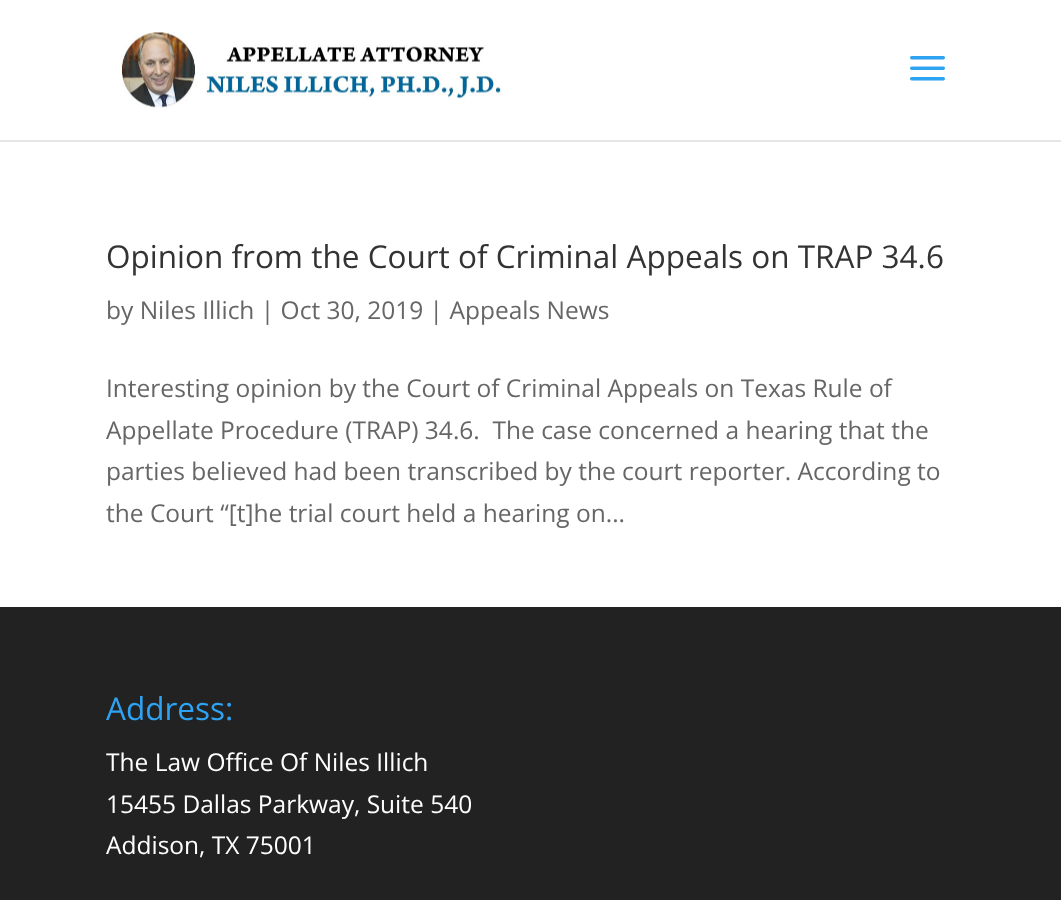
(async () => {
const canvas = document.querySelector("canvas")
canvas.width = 1061
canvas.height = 900
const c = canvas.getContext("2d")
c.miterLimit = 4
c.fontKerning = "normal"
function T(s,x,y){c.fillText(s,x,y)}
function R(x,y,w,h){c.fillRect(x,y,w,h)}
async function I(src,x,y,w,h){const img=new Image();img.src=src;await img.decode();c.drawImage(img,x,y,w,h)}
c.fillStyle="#fff"
R(0,0,1061,900)
c.fillStyle="#e6e6e6"
R(0,140,1061,2)
await I("1.png",121,32,381,76)
await I("2.png",910,56,35,25)
c.font="31.5px Open Sans"
c.fillStyle="#333"
T("Opinion from the Court of Criminal Appeals on TRAP 34.6",106,268)
c.font="24.5px Open Sans"
c.fillStyle="#666"
T("by Niles Illich | Oct 30, 2019 | Appeals News",106,319)
T("Interesting opinion by the Court of Criminal Appeals on Texas Rule of",106,397)
T("Appellate Procedure (TRAP) 34.6.  The case concerned a hearing that the",106,439)
T("parties believed had been transcribed by the court reporter. According to",106,480)
T("the Court “[t]he trial court held a hearing on...",106,522)
c.fillStyle="#222"
R(0,607,1061,293)
c.font="31.5px Open Sans"
c.fillStyle="#2ea3f2"
T("Address:",106,720)
c.font="24.5px Open Sans"
c.fillStyle="#fff"
T("The Law Office Of Niles Illich",106,771)
T("15455 Dallas Parkway, Suite 540",106,813)
T("Addison, TX 75001",106,854)
})()
